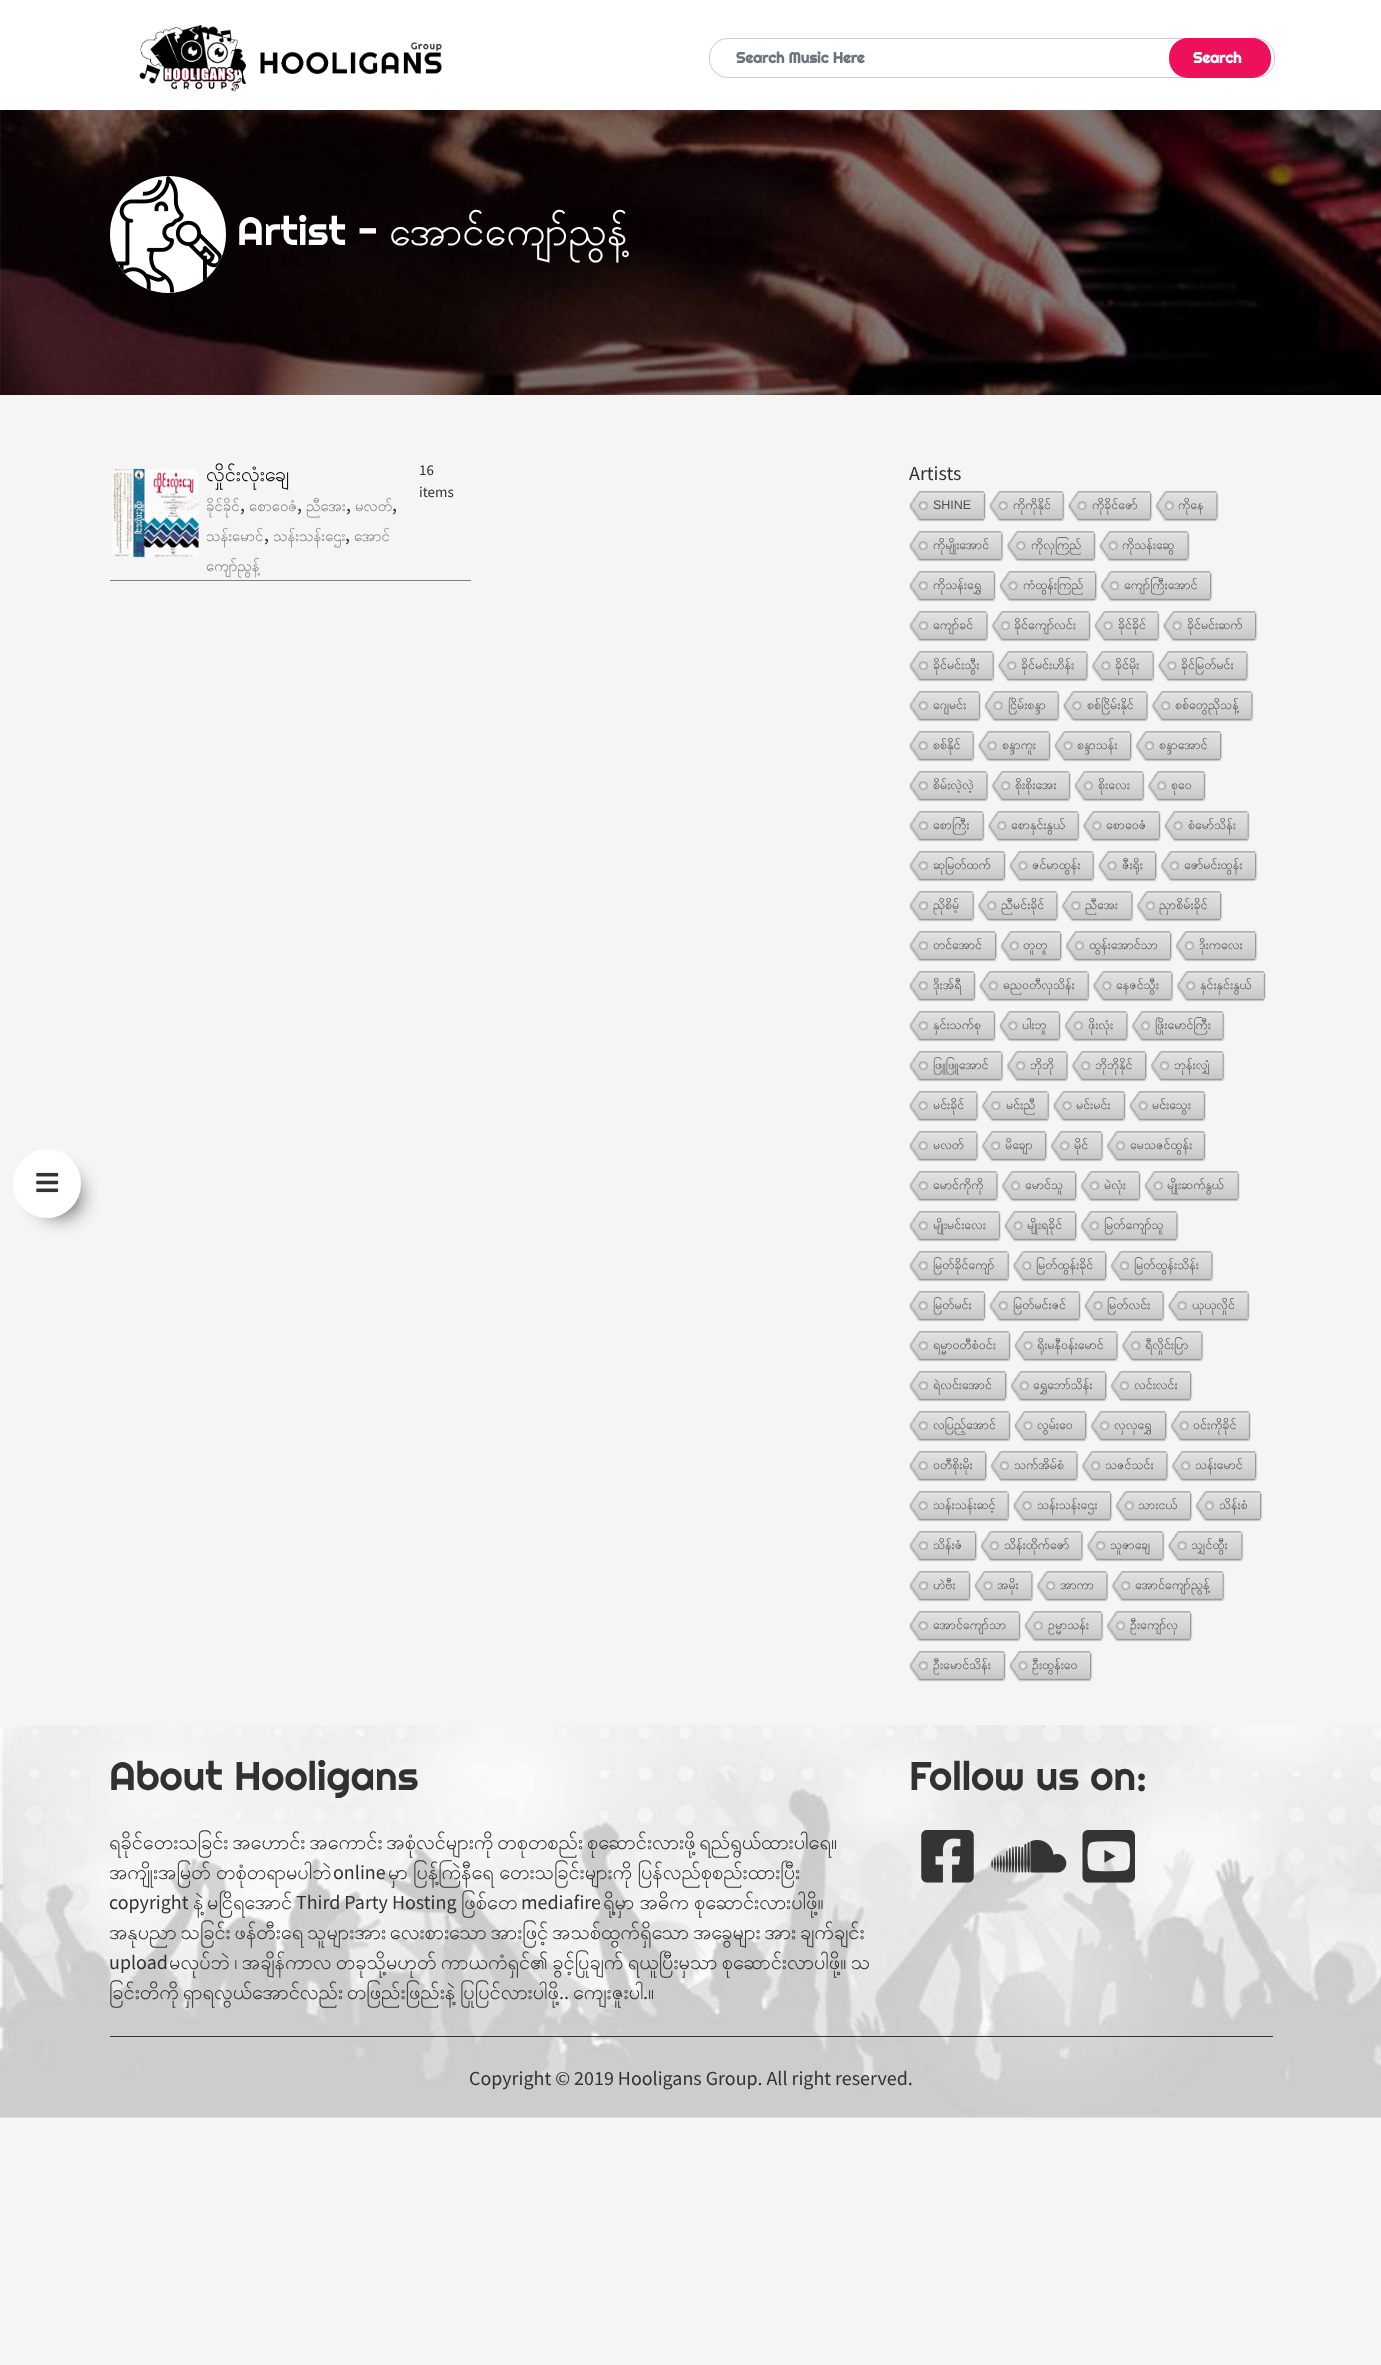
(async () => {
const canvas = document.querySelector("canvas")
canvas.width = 1381
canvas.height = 2365
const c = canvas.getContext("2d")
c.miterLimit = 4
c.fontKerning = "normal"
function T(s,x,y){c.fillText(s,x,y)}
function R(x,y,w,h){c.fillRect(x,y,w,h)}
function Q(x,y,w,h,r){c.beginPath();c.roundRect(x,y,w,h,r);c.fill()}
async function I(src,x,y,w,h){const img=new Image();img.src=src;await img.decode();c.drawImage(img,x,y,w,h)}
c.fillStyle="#f5f5f5"
R(0,0,1381,2365)
c.fillStyle="#000000bf"
c.filter="blur(12.5px)"
c.beginPath()
c.roundRect(45,1181,29,29,14.5)
c.fill()
c.filter="none"
c.filter="blur(12.5px)"
c.beginPath()
c.roundRect(45,1181,29,29,14.5)
c.fill()
c.filter="none"
c.fillStyle="#fff"
Q(13,1149,68,69,34)
await I("1.png",36,1172,23,21)
R(0,0,1381,110)
await I("2.png",139,25,303,67)
c.beginPath()
c.roundRect(709.5,38.5,565,39,18.5)
c.strokeStyle="#ccc"
c.stroke()
c.font="bold 15px Righteous"
c.fillStyle="#6c757d"
T("Search Music Here",736,63)
c.fillStyle="#ee105a"
Q(1169,38,102,40,19)
c.fillStyle="#fff"
T("Search",1193,63)
await I("3.png",0,110,1381,285)
Q(110,176,116,117,58)
await I("4.png",116,176,106,117)
c.font="40px Righteous"
T("Artist -",237,245)
c.font="40px Padauk"
T("အောင်ကျော်ညွန့်",389,245)
c.fillStyle="#808080"
R(110,580,361,1)
await I("5.png",111,468,88,90)
c.font="20px Padauk"
c.fillStyle="#000"
T("လှိုင်းလုံးချေ",206,481)
c.font="15px Padauk"
c.fillStyle="#808080"
T("ခိုင်ခိုင်",206,511)
c.font="20px Source Sans Pro"
c.fillStyle="#313131"
T(",",240,511)
c.font="15px Padauk"
c.fillStyle="#808080"
T("စောဝေဇံ",249,511)
c.font="20px Source Sans Pro"
c.fillStyle="#313131"
T(",",297,511)
c.font="15px Padauk"
c.fillStyle="#808080"
T("ညီအေး",306,511)
T("မလတ်",355,511)
c.font="20px Source Sans Pro"
c.fillStyle="#313131"
T(",",346,511)
T(",",392,511)
c.font="15px Padauk"
c.fillStyle="#808080"
T("သန်းမောင်",206,541)
c.font="20px Source Sans Pro"
c.fillStyle="#313131"
T(",",264,541)
c.font="15px Padauk"
c.fillStyle="#808080"
T("သန်းသန်းဌေး",273,541)
c.font="20px Source Sans Pro"
c.fillStyle="#313131"
T(",",345,541)
c.font="15px Padauk"
c.fillStyle="#808080"
T("အောင်",354,541)
T("ကျော်ညွန့်",206,571)
c.font="15px Source Sans Pro"
c.fillStyle="#313131"
T("16",419,475)
T("items",419,497)
c.font="20px Source Sans Pro"
T("Artists",909,480)
await I("6.png",909,491,75,31)
c.font="12.5px Liberation Sans"
c.fillStyle="#4f4f4f"
T("SHINE",933,509)
await I("7.png",983,492,3,29)
await I("8.png",989,491,74,31)
c.font="12.5px Padauk"
T("ကိုကိုနိုင်",1013,509)
await I("9.png",1062,492,3,29)
await I("10.png",1068,491,82,31)
T("ကိုခိုင်ဇော်",1092,509)
await I("11.png",1150,491,3,30)
await I("12.png",1155,491,62,31)
T("ကိုနေ",1178,509)
await I("13.png",1216,492,3,29)
await I("14.png",909,531,93,31)
T("ကိုမျိုးအောင်",933,549)
await I("13.png",1001,532,3,29)
await I("15.png",1006,531,88,31)
T("ကိုလှကြည်",1031,549)
await I("7.png",1093,532,3,29)
await I("16.png",1099,531,89,31)
T("ကိုသန်းဆွေ",1122,549)
await I("9.png",1187,532,3,29)
await I("17.png",909,571,85,31)
T("ကိုသန်းရွှေ",933,589)
await I("18.png",993,572,3,29)
await I("19.png",999,571,96,31)
T("ကံထွန်းကြည်",1023,589)
await I("20.png",1095,571,3,30)
await I("21.png",1100,571,110,31)
T("ကျော်ကြီးအောင်",1124,589)
await I("20.png",1210,571,3,30)
await I("22.png",909,611,78,31)
T("ကျော်ခင်",933,629)
await I("13.png",986,612,3,29)
await I("23.png",991,611,98,31)
T("ခိုင်ကျော်လင်း",1014,629)
await I("7.png",1088,612,3,29)
await I("24.png",1094,611,64,31)
T("ခိုင်ခိုင်",1118,629)
await I("9.png",1157,612,3,29)
await I("25.png",1163,611,92,31)
T("ခိုင်မင်းဆက်",1187,629)
await I("11.png",1255,611,3,30)
await I("26.png",909,651,84,31)
T("ခိုင်မင်းသွီး",933,669)
await I("9.png",992,652,3,29)
await I("27.png",997,651,90,31)
T("ခိုင်မင်းဟိန်း",1021,669)
await I("13.png",1086,652,3,29)
await I("28.png",1091,651,62,31)
T("ခိုင်မိုး",1115,669)
await I("9.png",1152,652,3,29)
await I("29.png",1157,651,90,31)
T("ခိုင်မြတ်မင်း",1181,669)
await I("13.png",1246,652,3,29)
await I("30.png",909,691,70,31)
T("ဂျေမင်း",933,709)
await I("7.png",978,692,3,29)
await I("31.png",984,691,74,31)
T("ငြိမ်းစန္ဒာ",1008,709)
await I("9.png",1057,692,3,29)
await I("32.png",1063,691,84,31)
T("စစ်ငြိမ်းနိုင်",1087,709)
await I("13.png",1146,692,3,29)
await I("33.png",1151,691,101,31)
T("စစ်တွေညိုသန့်",1175,709)
await I("13.png",1251,692,3,29)
await I("34.png",909,731,64,31)
T("စစ်နိုင်",933,749)
await I("9.png",972,732,3,29)
await I("35.png",978,731,71,31)
T("စန္ဒာကူး",1002,749)
await I("7.png",1048,732,3,29)
await I("36.png",1054,731,76,31)
T("စန္ဒာသန်း",1077,749)
await I("11.png",1130,731,3,30)
await I("37.png",1135,731,85,31)
T("စန္ဒာအောင်",1159,749)
await I("11.png",1220,731,3,30)
await I("38.png",909,771,78,31)
T("စိမ်းလဲ့လဲ့",933,789)
await I("13.png",986,772,3,29)
await I("39.png",991,771,78,31)
T("စိုးစိုးအေး",1015,789)
await I("7.png",1068,772,3,29)
await I("40.png",1074,771,69,31)
T("စိုးလေး",1098,789)
await I("9.png",1142,772,3,29)
await I("41.png",1147,771,57,31)
T("စုဝေ",1171,789)
await I("7.png",1203,772,3,29)
await I("42.png",909,811,74,31)
T("စောကြီး",933,829)
await I("9.png",982,812,3,29)
await I("43.png",987,811,91,31)
T("စောနှင်းနွယ်",1011,829)
await I("9.png",1077,812,3,29)
await I("44.png",1082,811,77,31)
T("စောဝေဇံ",1106,829)
await I("7.png",1158,812,3,29)
await I("45.png",1164,811,84,31)
T("စံမော်သိန်း",1188,829)
await I("9.png",1247,812,3,29)
await I("46.png",909,851,95,31)
T("ဆုမြတ်ထက်",933,869)
await I("7.png",1003,852,3,29)
await I("47.png",1009,851,84,31)
T("ဇင်မာထွန်း",1032,869)
await I("9.png",1092,852,3,29)
await I("48.png",1098,851,57,31)
T("ဇီးရိုး",1122,869)
await I("11.png",1155,851,3,30)
await I("49.png",1160,851,95,31)
T("ဇော်မင်းထွန်း",1184,869)
await I("11.png",1255,851,3,30)
await I("50.png",909,891,64,31)
T("ညိုစိမ့်",933,909)
await I("9.png",972,892,3,29)
await I("51.png",977,891,80,31)
T("ညီမင်းခိုင်",1001,909)
await I("13.png",1056,892,3,29)
await I("52.png",1061,891,71,31)
T("ညီအေး",1085,909)
await I("13.png",1131,892,3,29)
await I("53.png",1136,891,84,31)
T("ညှာစိမ်းခိုင်",1159,909)
await I("11.png",1220,891,3,30)
await I("54.png",909,931,86,31)
T("တင်အောင်",933,949)
await I("11.png",995,931,3,30)
await I("55.png",1000,931,60,31)
T("တူတူ",1023,949)
await I("11.png",1060,931,3,30)
await I("56.png",1065,931,105,31)
T("ထွန်းအောင်သာ",1089,949)
await I("11.png",1170,931,3,30)
await I("57.png",1175,931,80,31)
T("ဒိုးကလေး",1199,949)
await I("11.png",1255,931,3,30)
await I("58.png",909,971,65,31)
T("ဒိုးအ်ရီ",933,989)
await I("7.png",973,972,3,29)
await I("59.png",979,971,109,31)
T("ဓညဝတီလှသိန်း",1003,989)
await I("9.png",1087,972,3,29)
await I("60.png",1092,971,80,31)
T("နေဇင်သွီး",1116,989)
await I("13.png",1171,972,3,29)
await I("61.png",1176,971,88,31)
T("နှင်းနှင်းနွယ်",1200,989)
await I("7.png",1263,972,3,29)
await I("62.png",909,1011,85,31)
T("နှင်းသက်စု",933,1029)
await I("7.png",993,1012,3,29)
await I("63.png",999,1011,60,31)
T("ပါးဘူ",1022,1029)
await I("7.png",1058,1012,3,29)
await I("64.png",1064,1011,63,31)
T("ဖိုးလုံး",1088,1029)
await I("13.png",1126,1012,3,29)
await I("65.png",1131,1011,92,31)
T("ဖြိုးမောင်ကြီး",1155,1029)
await I("9.png",1222,1012,3,29)
await I("66.png",909,1051,93,31)
T("ဖြူဖြူအောင်",933,1069)
await I("13.png",1001,1052,3,29)
await I("67.png",1006,1051,61,31)
T("ဘိုဘို",1030,1069)
await I("13.png",1066,1052,3,29)
await I("68.png",1071,1051,74,31)
T("ဘိုဘိုနိုင်",1095,1069)
await I("11.png",1145,1051,3,30)
await I("69.png",1150,1051,73,31)
T("ဘုန်းလျှံ",1174,1069)
await I("9.png",1222,1052,3,29)
await I("70.png",909,1091,68,31)
T("မင်းခိုင်",933,1109)
await I("13.png",976,1092,3,29)
await I("71.png",981,1091,67,31)
T("မင်းညီ",1006,1109)
await I("9.png",1047,1092,3,29)
await I("72.png",1053,1091,71,31)
T("မင်းမင်း",1076,1109)
await I("7.png",1123,1092,3,29)
await I("73.png",1129,1091,75,31)
T("မင်းသွေး",1152,1109)
await I("7.png",1203,1092,3,29)
await I("74.png",909,1131,68,31)
T("မလတ်",933,1149)
await I("13.png",976,1132,3,29)
await I("75.png",981,1131,64,31)
T("မိချော",1005,1149)
await I("11.png",1045,1131,3,30)
await I("76.png",1050,1131,52,31)
T("မိုင်",1074,1149)
await I("13.png",1101,1132,3,29)
await I("77.png",1106,1131,98,31)
T("မေသဇင်ထွန်း",1130,1149)
await I("7.png",1203,1132,3,29)
await I("78.png",909,1171,88,31)
T("မောင်ကိုကို",933,1189)
await I("79.png",996,1172,3,29)
await I("80.png",1001,1171,74,31)
T("မောင်သူ",1025,1189)
await I("20.png",1075,1171,3,30)
await I("81.png",1080,1171,59,31)
T("မဲလုံး",1104,1189)
await I("18.png",1138,1172,3,29)
await I("82.png",1144,1171,94,31)
T("မျိုးဆက်နွယ်",1167,1189)
await I("83.png",1237,1172,3,29)
await I("84.png",909,1211,90,31)
T("မျိုးမင်းလေး",933,1229)
await I("7.png",998,1212,3,29)
await I("85.png",1004,1211,71,31)
T("မျိုးရခိုင်",1027,1229)
await I("11.png",1075,1211,3,30)
await I("86.png",1080,1211,97,31)
T("မြတ်ကျော်သူ",1104,1229)
await I("13.png",1176,1212,3,29)
await I("87.png",909,1251,99,31)
T("မြတ်ခိုင်ကျော်",933,1269)
await I("9.png",1007,1252,3,29)
await I("88.png",1012,1251,93,31)
T("မြတ်ထွန်းခိုင်",1036,1269)
await I("11.png",1105,1251,3,30)
await I("89.png",1110,1251,102,31)
T("မြတ်ထွန်းသိန်း",1134,1269)
await I("13.png",1211,1252,3,29)
await I("90.png",909,1291,75,31)
T("မြတ်မင်း",933,1309)
await I("7.png",983,1292,3,29)
await I("84.png",989,1291,90,31)
T("မြတ်မင်းဇင်",1013,1309)
await I("7.png",1078,1292,3,29)
await I("91.png",1084,1291,79,31)
T("မြတ်လင်း",1107,1309)
await I("9.png",1162,1292,3,29)
await I("92.png",1168,1291,80,31)
T("ယုယုလှိုင်",1192,1309)
await I("9.png",1247,1292,3,29)
await I("93.png",909,1331,100,31)
T("ရမ္မာဝတီစံဝင်း",933,1349)
await I("7.png",1008,1332,3,29)
await I("94.png",1014,1331,103,31)
T("ရိုးမနီဝန်းမောင်",1037,1349)
await I("13.png",1116,1332,3,29)
await I("95.png",1121,1331,81,31)
T("ရီလှိုင်းပြာ",1145,1349)
await I("13.png",1201,1332,3,29)
await I("96.png",909,1371,96,31)
T("ရဲလင်းအောင်",933,1389)
await I("11.png",1005,1371,3,30)
await I("97.png",1010,1371,95,31)
T("ရွှေဘော်သိန်း",1033,1389)
await I("11.png",1105,1371,3,30)
await I("57.png",1110,1371,80,31)
T("လင်းလင်း",1134,1389)
await I("11.png",1190,1371,3,30)
await I("98.png",909,1411,100,31)
T("လပြည့်အောင်",933,1429)
await I("7.png",1008,1412,3,29)
await I("99.png",1014,1411,71,31)
T("လွမ်းဝေ",1037,1429)
await I("11.png",1085,1411,3,30)
await I("100.png",1090,1411,75,31)
T("လှလှရွှေ",1114,1429)
await I("11.png",1165,1411,3,30)
await I("101.png",1170,1411,79,31)
T("ဝင်းကိုခိုင်",1193,1429)
await I("7.png",1248,1412,3,29)
await I("102.png",909,1451,76,31)
T("ဝတီစိုးမိုး",933,1469)
await I("11.png",985,1451,3,30)
await I("103.png",990,1451,87,31)
T("သက်အိမ်စံ",1014,1469)
await I("13.png",1076,1452,3,29)
await I("104.png",1081,1451,86,31)
T("သဇင်သင်း",1105,1469)
await I("13.png",1166,1452,3,29)
await I("105.png",1171,1451,84,31)
T("သန်းမောင်",1195,1469)
await I("11.png",1255,1451,3,30)
await I("106.png",909,1491,99,31)
T("သန်းသန်းဆင့်",933,1509)
await I("9.png",1007,1492,3,29)
await I("107.png",1013,1491,97,31)
T("သန်းသန်းဌေး",1037,1509)
await I("11.png",1110,1491,3,30)
await I("108.png",1115,1491,75,31)
T("သားငယ်",1138,1509)
await I("11.png",1190,1491,3,30)
await I("109.png",1195,1491,65,31)
T("သိန်းစံ",1219,1509)
await I("11.png",1260,1491,3,30)
await I("110.png",909,1531,66,31)
T("သိန်းဇံ",933,1549)
await I("11.png",975,1531,3,30)
await I("111.png",980,1531,102,31)
T("သိန်းထိုက်ဇော်",1004,1549)
await I("13.png",1081,1532,3,29)
await I("112.png",1086,1531,77,31)
T("သူဇာချေ",1110,1549)
await I("9.png",1162,1532,3,29)
await I("113.png",1168,1531,74,31)
T("သျှင်ထွီး",1191,1549)
await I("13.png",1241,1532,3,29)
await I("114.png",909,1571,60,31)
T("ဟဲဗီး",933,1589)
await I("7.png",968,1572,3,29)
await I("115.png",974,1571,58,31)
T("အမိုး",997,1589)
await I("13.png",1031,1572,3,29)
await I("116.png",1036,1571,71,31)
T("အာကာ",1060,1589)
await I("13.png",1106,1572,3,29)
await I("117.png",1111,1571,112,31)
T("အောင်ကျော်ညွန့်",1135,1589)
await I("9.png",1222,1572,3,29)
await I("118.png",909,1611,110,31)
T("အောင်ကျော်သာ",933,1629)
await I("7.png",1018,1612,3,29)
await I("119.png",1024,1611,78,31)
T("ဥမ္မာသန်း",1048,1629)
await I("13.png",1101,1612,3,29)
await I("120.png",1106,1611,84,31)
T("ဦးကျော်လှ",1130,1629)
await I("11.png",1190,1611,3,30)
await I("121.png",909,1651,95,31)
T("ဦးမောင်သိန်း",933,1669)
await I("7.png",1003,1652,3,29)
await I("122.png",1009,1651,81,31)
T("ဦးထွန်းဝေ",1032,1669)
await I("11.png",1090,1651,3,30)
await I("123.png",0,1725,1381,393)
c.font="40px Righteous"
c.fillStyle="#313131"
T("About Hooligans",109,1790)
c.wordSpacing="-3.5px"
c.font="20px Padauk"
T("ရခိုင်တေးသခြင်း အဟောင်း အကောင်း အစုံလင်များကို တစုတစည်း စုဆောင်းလားဖို့ ရည်ရွယ်ထားပါရေ။",109,1849)
c.wordSpacing="-2px"
T("အကျိုးအမြတ် တစုံတရာမပါဘဲ",109,1879)
c.wordSpacing="0px"
c.font="20px Source Sans Pro"
T("online",333,1879)
c.wordSpacing="-2px"
c.font="20px Padauk"
T("မှာ ပြန့်ကြဲနီရေ တေးသခြင်းများကို ပြန်လည်စုစည်းထားပြီး",388,1879)
c.wordSpacing="0px"
c.font="20px Source Sans Pro"
T("copyright",109,1909)
c.font="20px Padauk"
T("နဲ့",193,1909)
T("မငြိရအောင်",207,1909)
c.font="20px Source Sans Pro"
T("Third Party Hosting",296,1909)
c.font="20px Padauk"
T("ဖြစ်တေ",461,1909)
c.font="20px Source Sans Pro"
T("mediafire",521,1909)
c.wordSpacing="-2px"
c.font="20px Padauk"
T("ရို့မှာ အဓိက စုဆောင်းလားပါဖို့။",603,1909)
c.wordSpacing="-3.5px"
T("အနုပညာ သခြင်း ဖန်တီးရေ သူများအား လေးစားသော အားဖြင့် အသစ်ထွက်ရှိသော အခွေများ အား ချက်ချင်း",109,1939)
c.wordSpacing="0px"
c.font="20px Source Sans Pro"
T("upload",109,1969)
c.wordSpacing="-3px"
c.font="20px Padauk"
T("မလုပ်ဘဲ ၊ အချိန်ကာလ တခုသို့မဟုတ် ကာယကံရှင်၏ ခွင့်ပြုချက် ရယူပြီးမှသာ စုဆောင်းလာပါဖို့။ သ",169,1969)
c.wordSpacing="-3.5px"
T("ခြင်းတိကို ရှာရလွယ်အောင်လည်း တဖြည်းဖြည်းနဲ့",109,1999)
c.wordSpacing="0px"
T("ပြုပြင်လားပါဖို့",460,1999)
c.font="20px Source Sans Pro"
T("..",559,1999)
c.font="20px Padauk"
T("ကျေးဇူးပါ",573,1999)
c.font="20px Source Sans Pro"
T(".",643,1999)
c.font="20px Padauk"
T("။",648,1999)
c.font="40px Righteous"
T("Follow us on:",909,1790)
await I("124.png",921,1830,53,53)
await I("125.png",991,1840,76,33)
await I("126.png",1082,1830,53,53)
c.fillStyle="#343434"
R(110,2036,1163,1)
c.font="20px Source Sans Pro"
c.fillStyle="#313131"
T("Copyright © 2019 Hooligans Group. All right reserved.",469,2085)
})()
